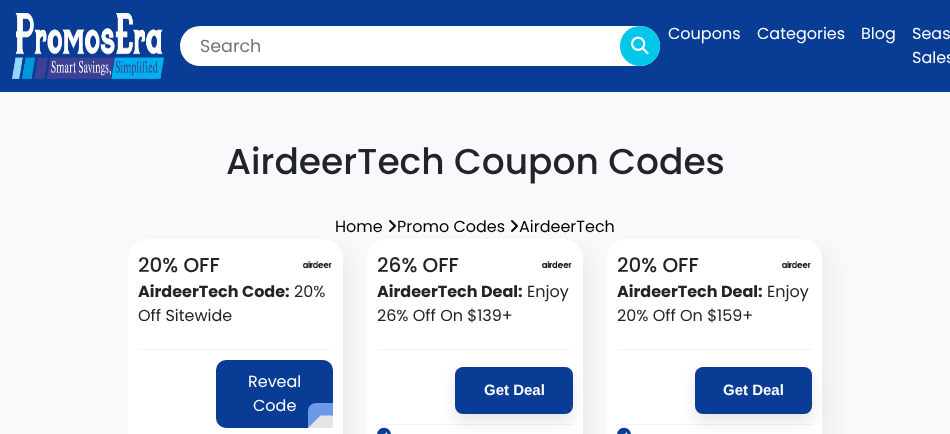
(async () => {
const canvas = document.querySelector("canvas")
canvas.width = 950
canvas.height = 434
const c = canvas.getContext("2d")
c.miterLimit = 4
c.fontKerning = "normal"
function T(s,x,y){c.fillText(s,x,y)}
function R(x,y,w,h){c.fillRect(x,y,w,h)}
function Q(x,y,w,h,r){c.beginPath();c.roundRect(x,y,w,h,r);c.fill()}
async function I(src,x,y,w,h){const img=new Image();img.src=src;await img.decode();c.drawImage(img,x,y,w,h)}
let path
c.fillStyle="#f8f9fa"
R(0,0,950,434)
c.fillStyle="#093c94"
R(0,0,950,92)
await I("1.png",12,13,152,66)
c.fillStyle="#fff"
Q(180,26,480,40,20)
c.font="17.5px Poppins"
c.fillStyle="#757575"
T("Search",200,52)
c.fillStyle="#01c7e9"
c.beginPath()
c.arc(640,46,20,0,7)
c.fill()
await I("2.png",631,36,18,19)
c.font="16px Poppins"
c.fillStyle="#fff"
T("Coupons",668,39)
T("Categories",757,39)
T("Blog",861,39)
T("Seas",912,39)
T("Sales",912,63)
c.font="500 36px Poppins"
c.fillStyle="#212529"
T("AirdeerTech Coupon Codes",226,174)
c.font="16px Poppins"
c.fillStyle="#000"
T("Home",335,232)
await I("3.png",389,220,7,12)
T("Promo Codes",397,232)
await I("3.png",511,220,7,12)
T("AirdeerTech",519,232)
c.fillStyle="#eee"
c.filter="blur(7.5px)"
c.beginPath()
c.roundRect(138,249,215,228,20)
c.fill()
c.filter="none"
c.fillStyle="#fff"
Q(128,239,215,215,20)
c.font="500 20px Poppins"
c.fillStyle="#212529"
T("20% OFF",138,272)
await I("4.png",302,260,30,9)
c.fillStyle="#f3f3f3"
R(138,349,195,1)
c.font="bold 16px Poppins"
c.fillStyle="#212529"
T("AirdeerTech Code:",138,297)
c.font="16px Poppins"
T("20%",294,297)
T("Off Sitewide",138,321)
c.fillStyle="#093c94"
Q(216,360,117,68,10)
c.fillStyle="#fff"
T("Reveal",248,387)
T("Code",253,411)
c.fillStyle="#6e99e6"
c.beginPath()
c.roundRect(308,403,25,25,[8,0,0,0])
c.fill()
c.fillStyle="#e5e5e5"
path = new Path2D("M333 428v-12.5h-12.5l-12.5 12.5z")
c.fill(path)
c.fillStyle="#eee"
c.filter="blur(7.5px)"
c.beginPath()
c.roundRect(377,249,216,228,20)
c.fill()
c.filter="none"
c.fillStyle="#fff"
Q(367,239,216,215,20)
c.font="500 20px Poppins"
c.fillStyle="#212529"
T("26% OFF",377,272)
await I("5.png",541,260,31,9)
c.fillStyle="#f3f3f3"
R(377,349,196,1)
c.font="bold 16px Poppins"
c.fillStyle="#212529"
T("AirdeerTech Deal:",377,297)
c.font="16px Poppins"
T("Enjoy",527,297)
T("26% Off On $139+",377,321)
c.fillStyle="#f3f3f3"
R(377,424,196,1)
c.fillStyle="#0000001a"
c.filter="blur(7.5px)"
c.beginPath()
c.roundRect(455,375,118,47,8)
c.fill()
c.filter="none"
c.fillStyle="#093c94"
Q(455,367,118,47,8)
c.font="bold 15px Liberation Sans"
c.fillStyle="#fff"
T("Get Deal",484,395)
await I("6.png",377,427,14,7)
c.fillStyle="#eee"
c.filter="blur(7.5px)"
c.beginPath()
c.roundRect(617,249,215,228,20)
c.fill()
c.filter="none"
c.fillStyle="#fff"
Q(607,239,215,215,20)
c.font="500 20px Poppins"
c.fillStyle="#212529"
T("20% OFF",617,272)
await I("4.png",781,260,30,9)
c.fillStyle="#f3f3f3"
R(617,349,195,1)
c.font="bold 16px Poppins"
c.fillStyle="#212529"
T("AirdeerTech Deal:",617,297)
c.font="16px Poppins"
T("Enjoy",767,297)
T("20% Off On $159+",617,321)
c.fillStyle="#f3f3f3"
R(617,424,195,1)
c.fillStyle="#0000001a"
c.filter="blur(7.5px)"
c.beginPath()
c.roundRect(695,375,117,47,8)
c.fill()
c.filter="none"
c.fillStyle="#093c94"
Q(695,367,117,47,8)
c.font="bold 15px Liberation Sans"
c.fillStyle="#fff"
T("Get Deal",723,395)
await I("6.png",617,427,14,7)
})()
